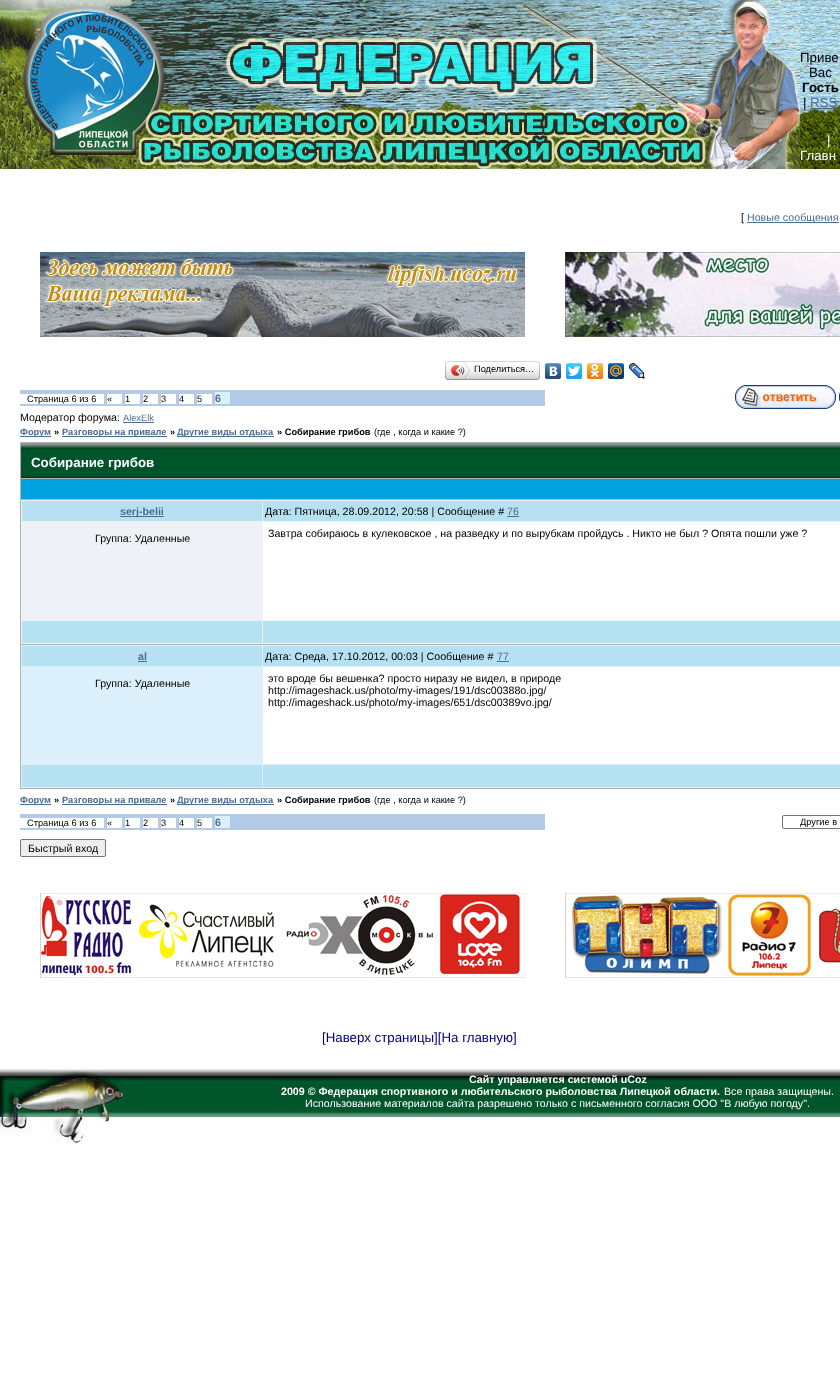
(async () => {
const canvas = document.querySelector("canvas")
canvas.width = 840
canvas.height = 1385
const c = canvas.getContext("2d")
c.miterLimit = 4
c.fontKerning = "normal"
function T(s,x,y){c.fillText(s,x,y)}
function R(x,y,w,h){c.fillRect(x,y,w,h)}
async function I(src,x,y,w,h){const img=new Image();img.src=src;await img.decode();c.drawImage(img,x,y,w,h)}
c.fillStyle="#fff"
R(0,0,840,1385)
await I("1.png",800,0,40,169)
await I("2.png",0,0,800,30)
await I("3.png",0,30,800,90)
c.font="13.3px Liberation Sans"
c.fillStyle="#000"
T("Приве",800,62)
T("Вас",809,77)
c.font="bold 13.3px Liberation Sans"
T("Гость",802,92)
c.font="13.3px Liberation Sans"
T("|",803,107)
c.fillStyle="#4d6d91"
T("RSS",810,107)
R(810,108,27,1)
await I("4.png",0,120,800,49)
c.fillStyle="#fff"
T("|",827,145)
T("Главн",800,160)
c.font="10.67px Liberation Sans"
c.fillStyle="#000"
T("[",741,221)
c.fillStyle="#4d6d91"
R(747,222,92,1)
T("Новые сообщения",747,221)
await I("5.png",40,252,485,85)
await I("6.png",565,252,275,85)
await I("7.png",448,361,89,19)
await I("8.png",445,361,3,19)
await I("9.png",451,362,20,17)
c.font="9.25px Liberation Sans"
c.fillStyle="#000"
T("Поделиться…",474,372)
await I("10.png",537,361,3,19)
await I("11.png",545,363,16,16)
await I("12.png",566,363,16,16)
await I("13.png",587,363,16,16)
await I("14.png",608,363,16,16)
await I("15.png",629,363,16,16)
c.fillStyle="#b4cbe7"
R(20,390,525,16)
c.fillStyle="#fff"
R(20,394,84,10)
c.fillStyle="#000"
T("Страница 6 из 6",27,402)
c.fillStyle="#fff"
R(107,394,15,10)
c.fillStyle="#000"
T("«",107,402)
c.fillStyle="#fff"
R(125,394,15,10)
c.fillStyle="#000"
T("1",125,402)
c.fillStyle="#fff"
R(143,394,15,10)
c.fillStyle="#000"
T("2",143,402)
c.fillStyle="#fff"
R(161,394,15,10)
c.fillStyle="#000"
T("3",161,402)
c.fillStyle="#fff"
R(179,394,15,10)
c.fillStyle="#000"
T("4",179,402)
c.fillStyle="#fff"
R(197,394,15,10)
c.fillStyle="#000"
T("5",197,402)
c.fillStyle="#dcf0fc"
R(215,392,15,12)
c.font="bold 10.67px Liberation Sans"
c.fillStyle="#4d6d91"
T("6",215,402)
await I("16.png",735,385,101,24)
await I("17.png",839,392,1,10)
c.font="10.67px Liberation Sans"
c.fillStyle="#000"
T("Модератор форума:",20,421)
c.font="9.25px Liberation Sans"
c.fillStyle="#4d6d91"
T("AlexElk",123,421)
R(123,422,31,1)
R(20,436,31,1)
c.font="bold 9.25px Liberation Sans"
T("Форум",20,435)
c.fillStyle="#000"
T("»",54,435)
c.fillStyle="#4d6d91"
R(62,436,105,1)
T("Разговоры на привале",62,435)
c.fillStyle="#000"
T("»",170,435)
c.fillStyle="#4d6d91"
R(177,436,97,1)
T("Другие виды отдыха",177,435)
c.fillStyle="#000"
T("» Собирание грибов",277,435)
c.font="9.25px Liberation Sans"
T("(где , когда и какие ?)",374,435)
c.fillStyle="#b3b2b2"
R(20,442,820,347)
await I("18.png",21,443,819,35)
c.font="bold 13.3px Liberation Sans"
c.fillStyle="#fff"
T("Собирание грибов",31,467)
c.fillStyle="#00a1de"
R(21,479,819,20)
c.fillStyle="#eef2f7"
R(21,500,819,144)
c.fillStyle="#b6e1f2"
R(22,501,240,20)
c.fillStyle="#4d6d91"
R(120,516,44,1)
c.font="bold 10.67px Liberation Sans"
T("serj-belii",120,515)
c.fillStyle="#b6e1f2"
R(263,501,577,20)
c.font="10.67px Liberation Sans"
c.fillStyle="#000"
T("Дата: Пятница, 28.09.2012, 20:58 | Сообщение #",265,515)
c.fillStyle="#4d6d91"
T("76",507,515)
R(507,516,12,1)
c.fillStyle="#000"
T("Группа: Удаленные",95,542)
c.fillStyle="#fff"
R(263,522,577,98)
c.fillStyle="#000"
T("Завтра собираюсь в кулековское , на разведку и по вырубкам пройдусь . Никто не был ? Опята пошли уже ?",268,537)
c.fillStyle="#b6e1f2"
R(22,621,240,22)
R(263,621,577,22)
c.fillStyle="#dcf0fc"
R(21,645,819,143)
c.fillStyle="#b6e1f2"
R(22,646,240,20)
c.font="bold 10.67px Liberation Sans"
c.fillStyle="#4d6d91"
T("al",138,660)
R(138,661,9,1)
c.fillStyle="#b6e1f2"
R(263,646,577,20)
c.font="10.67px Liberation Sans"
c.fillStyle="#000"
T("Дата: Среда, 17.10.2012, 00:03 | Сообщение #",265,660)
c.fillStyle="#4d6d91"
T("77",497,660)
R(497,661,12,1)
c.fillStyle="#000"
T("Группа: Удаленные",95,687)
c.fillStyle="#fff"
R(263,667,577,97)
c.fillStyle="#000"
T("это вроде бы вешенка? просто ниразу не видел, в природе",268,682)
T("http://imageshack.us/photo/my-images/191/dsc00388o.jpg/",268,694)
T("http://imageshack.us/photo/my-images/651/dsc00389vo.jpg/",268,706)
c.fillStyle="#b6e1f2"
R(22,765,240,22)
R(263,765,577,22)
c.fillStyle="#4d6d91"
R(20,804,31,1)
c.font="bold 9.25px Liberation Sans"
T("Форум",20,803)
c.fillStyle="#000"
T("»",54,803)
c.fillStyle="#4d6d91"
R(62,804,105,1)
T("Разговоры на привале",62,803)
c.fillStyle="#000"
T("»",170,803)
c.fillStyle="#4d6d91"
R(177,804,97,1)
T("Другие виды отдыха",177,803)
c.fillStyle="#000"
T("» Собирание грибов",277,803)
c.font="9.25px Liberation Sans"
T("(где , когда и какие ?)",374,803)
c.fillStyle="#b4cbe7"
R(20,814,525,16)
c.fillStyle="#fff"
R(20,818,84,10)
c.fillStyle="#000"
T("Страница 6 из 6",27,826)
c.fillStyle="#fff"
R(107,818,15,10)
c.fillStyle="#000"
T("«",107,826)
c.fillStyle="#fff"
R(125,818,15,10)
c.fillStyle="#000"
T("1",125,826)
c.fillStyle="#fff"
R(143,818,15,10)
c.fillStyle="#000"
T("2",143,826)
c.fillStyle="#fff"
R(161,818,15,10)
c.fillStyle="#000"
T("3",161,826)
c.fillStyle="#fff"
R(179,818,15,10)
c.fillStyle="#000"
T("4",179,826)
c.fillStyle="#fff"
R(197,818,15,10)
c.fillStyle="#000"
T("5",197,826)
c.fillStyle="#dcf0fc"
R(215,816,15,12)
c.font="bold 10.67px Liberation Sans"
c.fillStyle="#4d6d91"
T("6",215,826)
c.beginPath()
c.roundRect(782.5,815.5,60,13,1.5)
c.strokeStyle="#767676"
c.stroke()
c.font="9.25px Liberation Sans"
c.fillStyle="#000"
T("Другие в",800,825)
c.fillStyle="#efefef"
c.beginPath()
c.roundRect(20.5,839.5,85,17,1.5)
c.fill()
c.stroke()
c.font="10.67px Liberation Sans"
c.fillStyle="#000"
T("Быстрый вход",28,852)
await I("19.png",40,893,485,85)
await I("20.png",565,893,275,85)
c.font="13.3px Liberation Sans"
c.fillStyle="#000080"
T("[Наверх страницы][На главную]",322,1042)
await I("21.png",128,1069,712,48)
await I("22.png",0,1069,128,75)
c.font="bold 10.67px Liberation Sans"
c.fillStyle="#fff"
T("Сайт управляется системой uCoz",469,1083)
T("2009 © Федерация спортивного и любительского рыболовства Липецкой области.",281,1095)
c.font="10.67px Liberation Sans"
T("Все права защищены.",724,1095)
T("Использование материалов сайта разрешено только с письменного согласия ООО \"В любую погоду\".",305,1107)
})()
